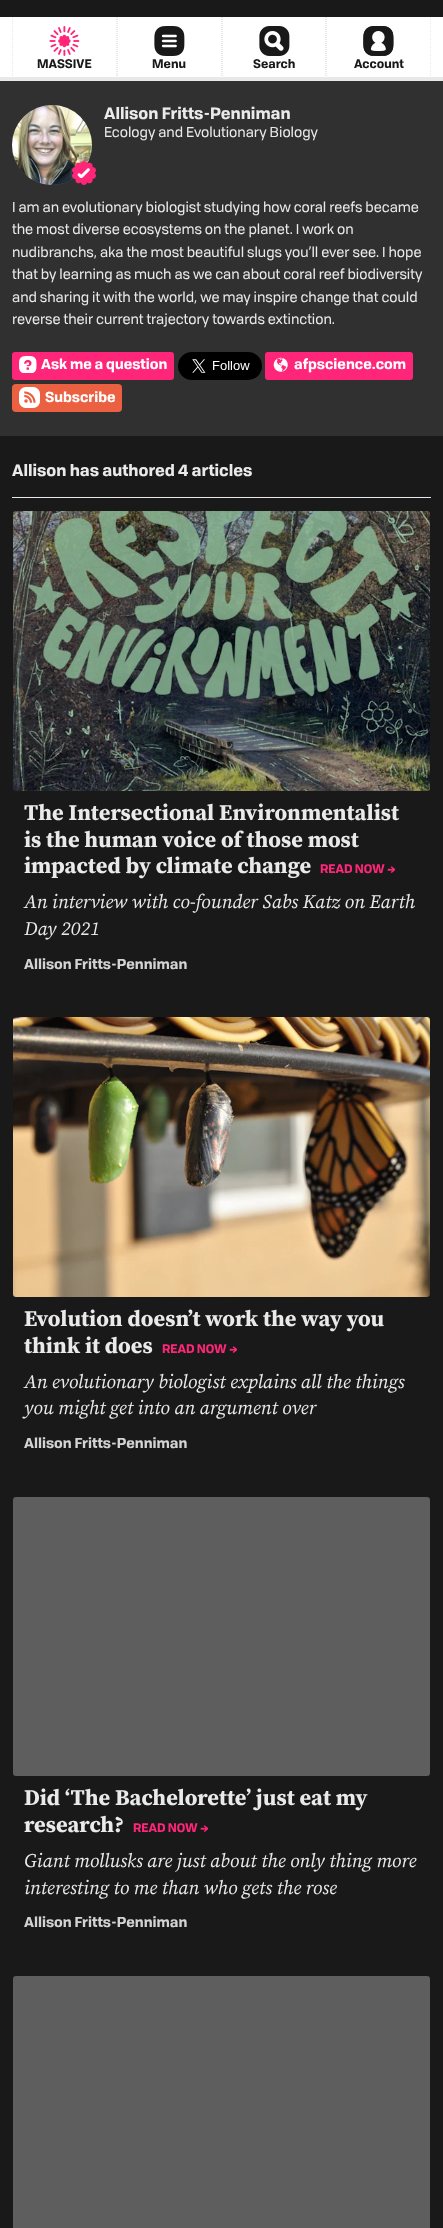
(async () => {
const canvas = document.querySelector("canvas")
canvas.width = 443
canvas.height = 2228
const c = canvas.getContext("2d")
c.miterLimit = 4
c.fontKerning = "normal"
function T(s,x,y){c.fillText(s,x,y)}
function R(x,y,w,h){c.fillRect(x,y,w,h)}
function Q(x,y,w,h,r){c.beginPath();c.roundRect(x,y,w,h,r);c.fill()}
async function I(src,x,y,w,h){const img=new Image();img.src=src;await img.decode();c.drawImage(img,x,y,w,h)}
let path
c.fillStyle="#191919"
R(0,0,443,2228)
c.fillStyle="#fff"
R(0,17,443,60)
c.fillStyle="#e8e8e8"
R(0,77,443,4)
path = new Path2D("M116.5 17v60")
c.strokeStyle="#e8e8e8"
c.setLineDash([1,1])
c.stroke(path)
path = new Path2D("M12.5 17v60")
c.stroke(path)
await I("1.png",49,26,31,30)
c.font="bold 12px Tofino"
c.fillStyle="#191919"
T("MASSIVE",37,68)
path = new Path2D("M221.5 17v60")
c.stroke(path)
path = new Path2D("M117.5 17v60")
c.stroke(path)
await I("2.png",154,26,31,30)
T("Menu",152,68)
path = new Path2D("M325.5 17v60")
c.stroke(path)
path = new Path2D("M222.5 17v60")
c.stroke(path)
await I("3.png",259,26,31,30)
T("Search",253,68)
path = new Path2D("M430.5 17v60")
c.stroke(path)
path = new Path2D("M326.5 17v60")
c.stroke(path)
await I("4.png",363,26,31,30)
T("Account",354,68)
c.fillStyle="#303030"
R(0,81,443,355)
c.fillStyle="#6e6e6e"
c.beginPath()
c.arc(52,145,40,0,7)
c.fill()
await I("5.png",12,105,80,80)
await I("6.png",72,161,24,24)
c.font="bold 16px Tofino"
c.fillStyle="#eaeaea"
T("Allison Fritts-Penniman",104,119)
c.font="14px Tofino"
T("Ecology and Evolutionary Biology",104,137)
T("I am an evolutionary biologist studying how coral reefs became",12,212)
T("the most diverse ecosystems on the planet. I work on",12,234)
T("nudibranchs, aka the most beautiful slugs you’ll ever see. I hope",12,257)
T("that by learning as much as we can about coral reef biodiversity",12,279)
T("and sharing it with the world, we may inspire change that could",12,302)
T("reverse their current trajectory towards extinction.",12,324)
c.fillStyle="#ff2679"
Q(12,352,162,28,3)
await I("7.png",19,356,18,17)
c.font="bold 14px Tofino"
c.fillStyle="#fff"
T("Ask me a question",41,369)
await I("8.png",178,352,84,28)
c.fillStyle="#ff2679"
Q(265,352,148,28,3)
await I("9.png",273,357,15,15)
c.fillStyle="#fff"
T("afpscience.com",294,369)
c.fillStyle="#eb6041"
Q(12,384,110,28,4)
await I("10.png",19,387,21,21)
c.fillStyle="#fff"
T("Subscribe",45,402)
c.fillStyle="#e8e8e8"
R(12,497,419,1)
c.font="bold 16px Tofino"
c.fillStyle="#eaeaea"
T("Allison has authored 4 articles",12,476)
await I("11.png",13,511,417,280)
c.font="bold 22.4px Source Serif Pro"
T("The Intersectional Environmentalist",24,820)
T("is the human voice of those most",24,847)
T("impacted by climate change",24,873)
c.font="bold 12px Tofino"
c.fillStyle="#ff2679"
T("READ NOW →",320,873)
c.font="italic 19.2px Source Serif Pro"
c.fillStyle="#eaeaea"
T("An interview with co-founder Sabs Katz on Earth",24,908)
T("Day 2021",24,935)
c.font="bold 14px Tofino"
c.fillStyle="#d3d3d3"
T("Allison Fritts-Penniman",24,969)
await I("12.png",13,1017,417,280)
c.font="bold 22.4px Source Serif Pro"
c.fillStyle="#eaeaea"
T("Evolution doesn’t work the way you",24,1326)
T("think it does",24,1353)
c.font="bold 12px Tofino"
c.fillStyle="#ff2679"
T("READ NOW →",162,1353)
c.font="italic 19.2px Source Serif Pro"
c.fillStyle="#eaeaea"
T("An evolutionary biologist explains all the things",24,1388)
T("you might get into an argument over",24,1414)
c.font="bold 14px Tofino"
c.fillStyle="#d3d3d3"
T("Allison Fritts-Penniman",24,1448)
c.fillStyle="#5e5e5e"
Q(13,1497,417,279,3)
c.font="bold 22.4px Source Serif Pro"
c.fillStyle="#eaeaea"
T("Did ‘The Bachelorette’ just eat my",24,1805)
T("research?",24,1832)
c.font="bold 12px Tofino"
c.fillStyle="#ff2679"
T("READ NOW →",133,1832)
c.font="italic 19.2px Source Serif Pro"
c.fillStyle="#eaeaea"
T("Giant mollusks are just about the only thing more",24,1867)
T("interesting to me than who gets the rose",24,1894)
c.font="bold 14px Tofino"
c.fillStyle="#d3d3d3"
T("Allison Fritts-Penniman",24,1927)
c.fillStyle="#5e5e5e"
Q(13,1976,417,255,3)
})()
